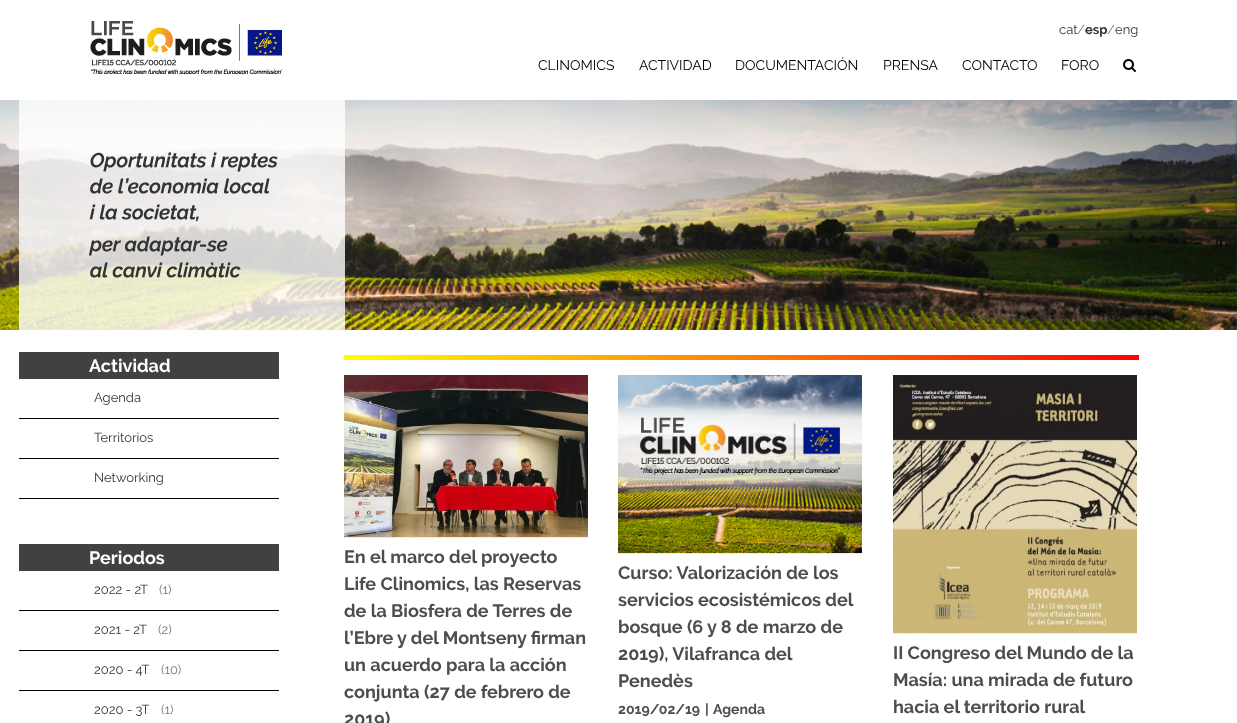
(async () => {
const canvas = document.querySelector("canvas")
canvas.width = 1237
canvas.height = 723
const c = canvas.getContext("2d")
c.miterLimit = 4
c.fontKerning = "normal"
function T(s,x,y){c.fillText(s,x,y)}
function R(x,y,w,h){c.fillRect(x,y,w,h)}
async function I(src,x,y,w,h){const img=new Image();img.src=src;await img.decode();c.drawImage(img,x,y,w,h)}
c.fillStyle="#fff"
R(0,0,1237,723)
await I("1.png",90,21,192,53)
c.font="13px Raleway"
c.fillStyle="#333"
T("cat",1059,34)
c.fillStyle="#747474"
T("/",1077,34)
c.font="bold 13px Raleway"
c.fillStyle="#333"
T("esp",1085,34)
c.font="13px Raleway"
c.fillStyle="#747474"
T("/",1107,34)
c.fillStyle="#333"
T("eng",1115,34)
c.font="14px Raleway"
c.fillStyle="#000"
T("CLINOMICS",538,70)
T("ACTIVIDAD",639,70)
T("DOCUMENTACIÓN",735,70)
T("PRENSA",883,70)
T("CONTACTO",962,70)
T("FORO",1061,70)
await I("2.png",1123,59,13,13)
await I("3.png",0,100,1237,230)
await I("4.png",19,100,326,230)
c.fillStyle="#414141"
R(19,352,260,27)
c.font="bold 18px Raleway"
c.fillStyle="#fff"
T("Actividad",89,372)
c.fillStyle="#000"
R(19,418,260,1)
c.font="13px Raleway"
c.fillStyle="#333"
T("Agenda",94,402)
c.fillStyle="#000"
R(19,458,260,1)
c.fillStyle="#333"
T("Territorios",94,442)
c.fillStyle="#000"
R(19,498,260,1)
c.fillStyle="#333"
T("Networking",94,482)
c.fillStyle="#414141"
R(19,544,260,27)
c.font="bold 18px Raleway"
c.fillStyle="#fff"
T("Periodos",89,564)
c.fillStyle="#000"
R(19,610,260,1)
c.font="13px Raleway"
c.fillStyle="#333"
T("2022 - 2T",94,594)
c.fillStyle="#747474"
T("(1)",159,594)
c.fillStyle="#000"
R(19,650,260,1)
c.fillStyle="#333"
T("2021 - 2T",94,634)
c.fillStyle="#747474"
T("(2)",158,634)
c.fillStyle="#000"
R(19,690,260,1)
c.fillStyle="#333"
T("2020 - 4T",94,674)
c.fillStyle="#747474"
T("(10)",161,674)
c.fillStyle="#333"
T("2020 - 3T",94,714)
c.fillStyle="#747474"
T("(1)",161,714)
await I("5.png",344,355,795,5)
c.fillStyle="#ebeaea"
R(344,537,244,1)
await I("6.png",344,375,244,162)
c.font="bold 18px Raleway"
c.fillStyle="#4d4d4d"
T("En el marco del proyecto",344,563)
T("Life Clinomics, las Reservas",344,590)
T("de la Biosfera de Terres de",344,617)
T("l’Ebre y del Montseny firman",344,644)
T("un acuerdo para la acción",344,671)
T("conjunta (27 de febrero de",344,698)
T("2019)",344,725)
c.fillStyle="#ebeaea"
R(618,553,244,1)
await I("7.png",618,375,244,178)
c.fillStyle="#4d4d4d"
T("Curso: Valorización de los",618,579)
T("servicios ecosistémicos del",618,606)
T("bosque (6 y 8 de marzo de",618,633)
T("2019), Vilafranca del",618,660)
T("Penedès",618,687)
c.font="bold 14px Raleway"
T("2019/02/19",618,714)
T("|",705,714)
T("Agenda",713,714)
c.fillStyle="#ebeaea"
R(893,633,244,1)
await I("8.png",893,375,244,258)
c.font="bold 18px Raleway"
c.fillStyle="#4d4d4d"
T("II Congreso del Mundo de la",893,659)
T("Masía: una mirada de futuro",893,686)
T("hacia el territorio rural",893,713)
})()
